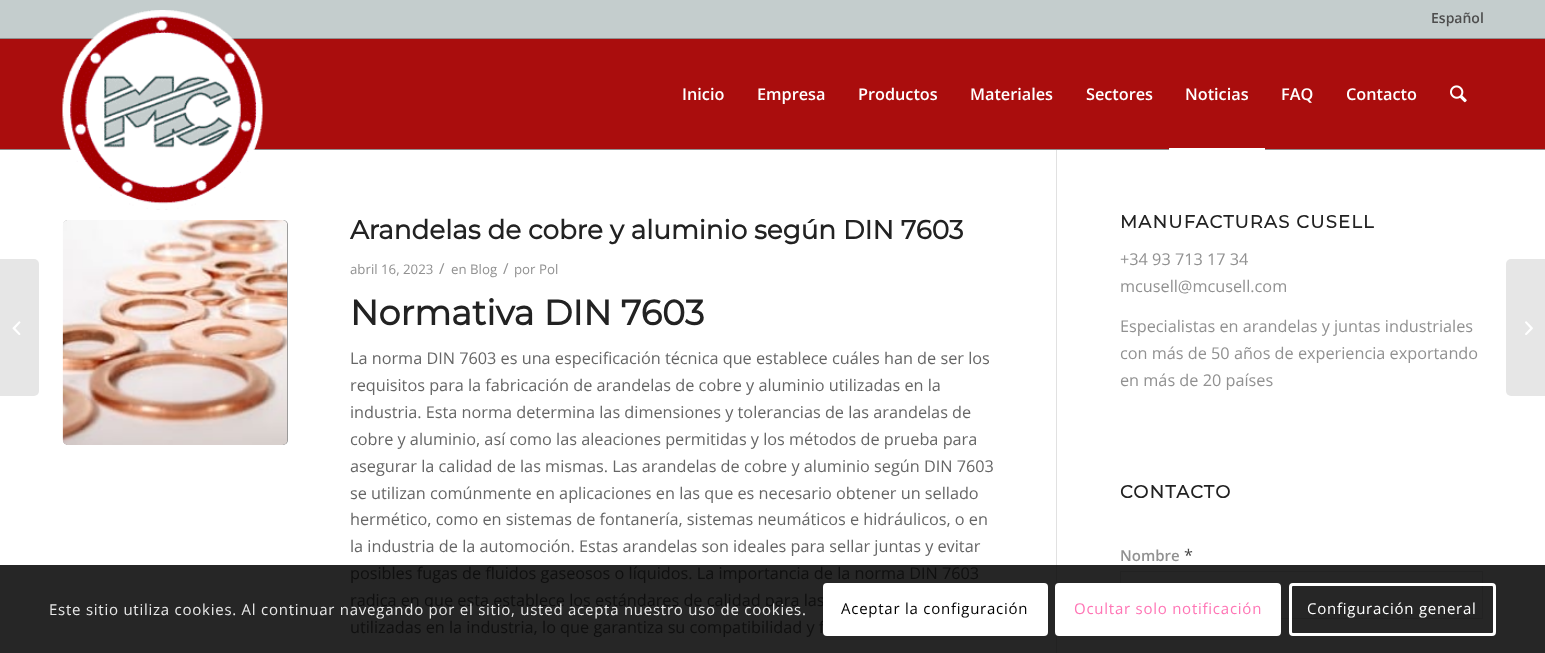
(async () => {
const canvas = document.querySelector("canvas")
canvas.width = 1545
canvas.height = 653
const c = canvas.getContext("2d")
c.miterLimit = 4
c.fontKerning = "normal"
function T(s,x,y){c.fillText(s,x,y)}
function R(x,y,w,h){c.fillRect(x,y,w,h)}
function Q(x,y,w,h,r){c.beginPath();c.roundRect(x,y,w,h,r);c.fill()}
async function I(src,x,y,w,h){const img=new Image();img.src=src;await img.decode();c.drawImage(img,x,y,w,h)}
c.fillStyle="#fff"
R(0,0,1545,653)
c.fillStyle="#262626"
R(0,565,1545,88)
c.fillStyle="#aa0d0d"
R(0,39,1545,110)
c.fillStyle="#c4cdcd"
R(0,0,1545,38)
c.fillStyle="#8f8f8f"
R(0,38,1545,1)
c.font="600 14px Open Sans"
c.fillStyle="#4d4d4d"
T("Español",1431,23)
c.fillStyle="#8f8f8f"
R(0,149,1545,1)
await I("1.png",62,10,201,200)
c.font="600 16.25px Open Sans"
c.fillStyle="#fff"
T("Inicio",682,100)
T("Empresa",757,100)
T("Productos",858,100)
T("Materiales",970,100)
T("Sectores",1086,100)
T("Noticias",1185,100)
R(1169,148,96,2)
T("FAQ",1281,100)
T("Contacto",1346,100)
await I("2.png",1450,85,17,18)
c.fillStyle="#e6e6e6"
c.beginPath()
c.roundRect(0,259,39,137,[0,5,5,0])
c.fill()
await I("3.png",12,321,9,14)
c.fillStyle="#e1e1e1"
R(1056,150,1,415)
c.fillStyle="#222"
R(1056,565,1,88)
c.fillStyle="#919191"
Q(63,220,225,225,5)
await I("4.png",62,220,226,225)
c.font="bold 26.25px Montserrat"
c.fillStyle="#222"
T("Arandelas de cobre y aluminio según DIN 7603",350,239)
c.font="13.25px Open Sans"
c.fillStyle="#919191"
T("abril 16, 2023",350,274)
c.font="15px Open Sans"
T("/",439,274)
c.font="13.25px Open Sans"
T("en Blog",451,274)
c.font="15px Open Sans"
T("/",503,274)
c.font="13.25px Open Sans"
T("por Pol",514,274)
c.font="bold 35px Montserrat"
c.fillStyle="#222"
T("Normativa DIN 7603",350,325)
c.font="16.25px Open Sans"
c.fillStyle="#666"
T("La norma DIN 7603 es una especificación técnica que establece cuáles han de ser los",350,364)
T("requisitos para la fabricación de arandelas de cobre y aluminio utilizadas en la",350,391)
T("industria. Esta norma determina las dimensiones y tolerancias de las arandelas de",350,418)
T("cobre y aluminio, así como las aleaciones permitidas y los métodos de prueba para",350,445)
T("asegurar la calidad de las mismas. Las arandelas de cobre y aluminio según DIN 7603",350,472)
T("se utilizan comúnmente en aplicaciones en las que es necesario obtener un sellado",350,499)
T("hermético, como en sistemas de fontanería, sistemas neumáticos e hidráulicos, o en",350,525)
T("la industria de la automoción. Estas arandelas son ideales para sellar juntas y evitar",350,552)
c.fillStyle="#0f0f0f"
T("posibles fugas de fluidos gaseosos o líquidos. La importancia de la norma DIN 7603",350,579)
T("radica en que esta establece los estándares de calidad para las",350,606)
T("utilizadas en la industria, lo que garantiza su compatibilidad y f",350,633)
c.letterSpacing="1.25px"
c.font="bold 17.9px Montserrat"
c.fillStyle="#222"
T("MANUFACTURAS CUSELL",1120,228)
c.letterSpacing="0px"
c.font="16.25px Open Sans"
c.fillStyle="#919191"
T("+34 93 713 17 34",1120,265)
T("mcusell@mcusell.com",1120,292)
T("Especialistas en arandelas y juntas industriales",1120,332)
T("con más de 50 años de experiencia exportando",1120,359)
T("en más de 20 países",1120,386)
c.letterSpacing="1.25px"
c.font="bold 17.9px Montserrat"
c.fillStyle="#222"
T("CONTACTO",1120,498)
c.letterSpacing="0px"
c.font="600 15px Open Sans"
c.fillStyle="#919191"
T("Nombre",1120,561)
c.font="16.25px Open Sans"
c.fillStyle="#444"
T("*",1184,561)
c.strokeStyle="#222"
c.strokeRect(1120.5,571.5,362,47)
c.fillStyle="#e6e6e6"
c.beginPath()
c.roundRect(1506,259,39,137,[5,0,0,5])
c.fill()
await I("5.png",1525,321,8,14)
c.letterSpacing="0.75px"
c.font="15px Open Sans"
c.fillStyle="#e9e9e9"
T("Este sitio utiliza cookies. Al continuar navegando por el sitio, usted acepta nuestro uso de cookies.",49,615)
c.fillStyle="#fff"
Q(823,583,225,53,4)
c.fillStyle="#000"
T("Aceptar la configuración",841,614)
c.fillStyle="#fff"
c.beginPath()
c.roundRect(1056.5,584.5,223,50,2.5)
c.fill()
c.strokeStyle="#fff"
c.lineWidth=3
c.stroke()
c.fillStyle="#ff75b5"
T("Ocultar solo notificación",1074,614)
c.beginPath()
c.roundRect(1290.5,584.5,204,50,2.5)
c.stroke()
c.fillStyle="#fff"
T("Configuración general",1307,614)
})()
